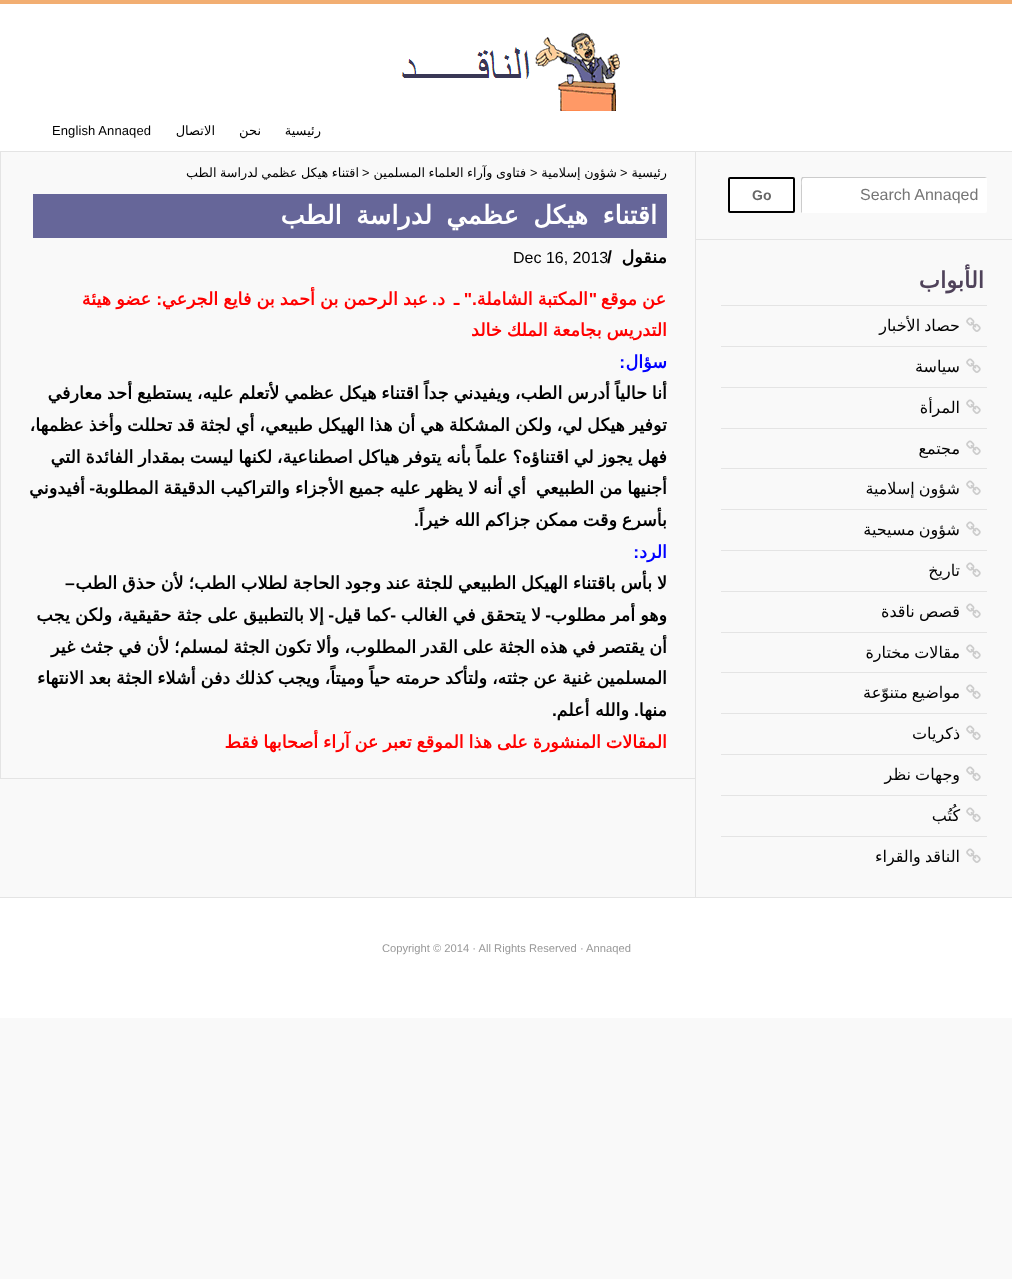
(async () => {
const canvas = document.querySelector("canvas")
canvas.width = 1012
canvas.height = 1279
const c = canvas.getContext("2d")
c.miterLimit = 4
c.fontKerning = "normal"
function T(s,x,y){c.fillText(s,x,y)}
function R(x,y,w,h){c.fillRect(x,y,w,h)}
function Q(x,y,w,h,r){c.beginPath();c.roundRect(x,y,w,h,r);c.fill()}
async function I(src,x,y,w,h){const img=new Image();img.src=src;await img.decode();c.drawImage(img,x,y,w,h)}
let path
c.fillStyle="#f9f9f9"
R(0,0,1012,1279)
c.fillStyle="#fff"
R(0,4,1012,147)
c.fillStyle="#f2ae72"
R(0,0,1012,4)
c.fillStyle="#e4e4e4"
R(0,151,1012,1)
await I("1.png",401,32,219,79)
c.letterSpacing="0.1px"
c.direction="rtl"
c.font="13px DejaVu Sans"
c.fillStyle="#000"
T("رئيسية",321,135)
T("نحن",261,135)
T("الاتصال",215,135)
c.direction="ltr"
c.font="13px Liberation Sans"
T("English Annaqed",52,135)
c.fillStyle="#e4e4e4"
R(0,897,1012,1)
R(695,152,1,746)
c.fillStyle="#fff"
Q(801,177,186,36,2)
c.fillStyle="#00000033"
path = new Path2D("M804 178h183l-2-1h-183l-1 2v33l1 1v-28c0 0-1-7 2-7z")
c.fill(path)
c.letterSpacing="0px"
c.font="16px Liberation Sans"
c.fillStyle="#757575"
T("Search Annaqed",860,200)
c.fillStyle="#fff"
c.beginPath()
c.roundRect(729,178,65,34,1)
c.fill()
c.strokeStyle="#000"
c.lineWidth=2
c.stroke()
c.font="bold 14px Liberation Sans"
c.fillStyle="#666"
T("Go",752,200)
c.fillStyle="#e4e4e4"
R(696,239,316,1)
c.letterSpacing="-0.5px"
c.direction="rtl"
c.font="bold 22.5px DejaVu Sans"
c.fillStyle="#4f425a"
T("الأبواب",984,288)
c.fillStyle="#e4e4e4"
R(721,305,266,1)
await I("2.png",966,317,15,15)
c.letterSpacing="0px"
c.wordSpacing="-1px"
c.font="16px DejaVu Sans"
c.fillStyle="#000"
T("حصاد الأخبار",960,331)
c.fillStyle="#e4e4e4"
R(721,346,266,1)
await I("2.png",966,358,15,15)
c.wordSpacing="0px"
c.fillStyle="#000"
T("سياسة",960,372)
c.fillStyle="#e4e4e4"
R(721,387,266,1)
await I("2.png",966,399,15,15)
c.fillStyle="#000"
T("المرأة",960,413)
c.fillStyle="#e4e4e4"
R(721,428,266,1)
await I("2.png",966,440,15,15)
c.fillStyle="#000"
T("مجتمع",960,454)
c.fillStyle="#e4e4e4"
R(721,468,266,1)
await I("2.png",966,480,15,15)
c.wordSpacing="-1px"
c.fillStyle="#000"
T("شؤون إسلامية",960,494)
c.fillStyle="#e4e4e4"
R(721,509,266,1)
await I("2.png",966,521,15,15)
c.fillStyle="#000"
T("شؤون مسيحية",960,535)
c.fillStyle="#e4e4e4"
R(721,550,266,1)
await I("2.png",966,562,15,15)
c.wordSpacing="0px"
c.fillStyle="#000"
T("تاريخ",960,576)
c.fillStyle="#e4e4e4"
R(721,591,266,1)
await I("2.png",966,603,15,15)
c.wordSpacing="-1px"
c.fillStyle="#000"
T("قصص ناقدة",960,617)
c.fillStyle="#e4e4e4"
R(721,632,266,1)
await I("2.png",966,644,15,15)
c.fillStyle="#000"
T("مقالات مختارة",960,658)
c.fillStyle="#e4e4e4"
R(721,672,266,1)
await I("2.png",966,684,15,15)
c.fillStyle="#000"
T("مواضيع متنوّعة",960,698)
c.fillStyle="#e4e4e4"
R(721,713,266,1)
await I("2.png",966,725,15,15)
c.wordSpacing="0px"
c.fillStyle="#000"
T("ذكريات",960,739)
c.fillStyle="#e4e4e4"
R(721,754,266,1)
await I("2.png",966,766,15,15)
c.wordSpacing="-1px"
c.fillStyle="#000"
T("وجهات نظر",960,780)
c.fillStyle="#e4e4e4"
R(721,795,266,1)
await I("2.png",966,807,15,15)
c.wordSpacing="0px"
c.fillStyle="#000"
T("كُتُب",960,821)
c.fillStyle="#e4e4e4"
R(721,836,266,1)
await I("2.png",966,848,15,15)
c.wordSpacing="-1px"
c.fillStyle="#000"
T("الناقد والقراء",960,862)
c.fillStyle="#e4e4e4"
R(0,778,696,1)
R(0,152,1,627)
c.wordSpacing="0px"
c.font="12.75px DejaVu Sans"
c.fillStyle="#000"
T("رئيسية",667,177)
c.direction="ltr"
c.font="12.75px Liberation Sans"
T(">",620,177)
c.wordSpacing="-0.5px"
c.direction="rtl"
c.font="12.75px DejaVu Sans"
T("شؤون إسلامية",617,177)
c.wordSpacing="0px"
c.direction="ltr"
c.font="12.75px Liberation Sans"
T(">",530,177)
c.wordSpacing="-0.5px"
c.direction="rtl"
c.font="12.75px DejaVu Sans"
T("فتاوى وآراء العلماء المسلمين",526,177)
c.wordSpacing="0px"
c.direction="ltr"
c.font="12.75px Liberation Sans"
T(">",362,177)
c.wordSpacing="-0.5px"
c.direction="rtl"
c.font="12.75px DejaVu Sans"
T("اقتناء هيكل عظمي لدراسة الطب",359,177)
c.fillStyle="#669"
R(33,194,634,44)
c.letterSpacing="-1.2px"
c.wordSpacing="7.5px"
c.font="bold 25.6px DejaVu Sans"
c.fillStyle="#fff"
T("اقتناء هيكل عظمي لدراسة الطب",657,224)
c.letterSpacing="0px"
c.wordSpacing="0px"
c.font="bold 17.6px DejaVu Sans"
c.fillStyle="#000"
T("منقول",667,263)
c.direction="ltr"
c.font="bold 17.6px Liberation Sans"
T("/",607,263)
c.font="16px Liberation Sans"
T("Dec 16, 2013",513,263)
c.wordSpacing="-0.5px"
c.direction="rtl"
c.font="bold 17.6px DejaVu Sans"
c.fillStyle="#f00"
T("عن موقع",666,305)
c.wordSpacing="0px"
c.font="bold 17.6px Liberation Sans"
T("\"",597,305)
c.wordSpacing="-0.5px"
c.font="bold 17.6px DejaVu Sans"
T("المكتبة الشاملة",588,305)
c.wordSpacing="0px"
c.font="bold 17.6px Liberation Sans"
T(".\"",477,305)
c.font="bold 17.6px DejaVu Sans"
T("ـ",459,305)
T("د",445,305)
c.font="bold 17.6px Liberation Sans"
T(".",437,305)
c.wordSpacing="-0.5px"
c.font="bold 17.6px DejaVu Sans"
T("عبد الرحمن بن أحمد بن فايع الجرعي",428,305)
c.wordSpacing="0px"
c.font="bold 17.6px Liberation Sans"
T(":",162,305)
c.wordSpacing="-0.5px"
c.font="bold 17.6px DejaVu Sans"
T("عضو هيئة",151,305)
c.wordSpacing="-0.75px"
T("التدريس بجامعة الملك خالد",667,336)
c.wordSpacing="0px"
c.fillStyle="#00f"
T("سؤال",667,368)
c.font="bold 17.6px Liberation Sans"
T(":",625,368)
c.wordSpacing="-0.75px"
c.font="bold 17.6px DejaVu Sans"
c.fillStyle="#000"
T("أنا حالياً أدرس الطب، ويفيدني جداً اقتناء هيكل عظمي لأتعلم عليه، يستطيع أحد معارفي",667,399)
T("توفير هيكل لي، ولكن المشكلة هي أن هذا الهيكل طبيعي، أي لجثة قد تحللت وأخذ عظمها،",667,431)
T("فهل يجوز لي اقتناؤه؟ علماً بأنه يتوفر هياكل اصطناعية، لكنها ليست بمقدار الفائدة التي",667,463)
c.wordSpacing="-0.5px"
T("أجنيها من الطبيعي",667,494)
T("أي أنه لا يظهر عليه جميع الأجزاء والتراكيب الدقيقة المطلوبة",526,494)
c.wordSpacing="0px"
c.font="bold 17.6px Liberation Sans"
T("-",95,494)
c.font="bold 17.6px DejaVu Sans"
T("أفيدوني",85,494)
c.wordSpacing="-0.75px"
T("بأسرع وقت ممكن جزاكم الله خيراً",667,526)
c.wordSpacing="0px"
c.font="bold 17.6px Liberation Sans"
T(".",419,526)
c.font="bold 17.6px DejaVu Sans"
c.fillStyle="#00f"
T("الرد",667,558)
c.font="bold 17.6px Liberation Sans"
T(":",639,558)
c.wordSpacing="-0.75px"
c.font="bold 17.6px DejaVu Sans"
c.fillStyle="#000"
T("لا بأس باقتناء الهيكل الطبيعي للجثة عند وجود الحاجة لطلاب الطب؛ لأن حذق الطب",667,589)
c.wordSpacing="0px"
c.direction="ltr"
c.font="bold 17.6px Liberation Sans"
T("–",65,589)
c.wordSpacing="-0.5px"
c.direction="rtl"
c.font="bold 17.6px DejaVu Sans"
T("وهو أمر مطلوب",667,621)
c.wordSpacing="0px"
c.font="bold 17.6px Liberation Sans"
T("-",551,621)
c.wordSpacing="-0.5px"
c.font="bold 17.6px DejaVu Sans"
T("لا يتحقق في الغالب",541,621)
T("كما قيل",390,621)
c.wordSpacing="0px"
c.font="bold 17.6px Liberation Sans"
T("-",396,621)
T("-",334,621)
c.wordSpacing="-0.5px"
c.font="bold 17.6px DejaVu Sans"
T("إلا بالتطبيق على جثة حقيقية، ولكن يجب",324,621)
c.wordSpacing="-0.75px"
T("أن يقتصر في هذه الجثة على القدر المطلوب، وألا تكون الجثة لمسلم؛ لأن في جثث غير",667,653)
T("المسلمين غنية عن جثته، ولتأكد حرمته حياً وميتاً، ويجب كذلك دفن أشلاء الجثة بعد الانتهاء",667,684)
c.wordSpacing="0px"
T("منها",667,716)
c.font="bold 17.6px Liberation Sans"
T(".",639,716)
c.font="bold 17.6px DejaVu Sans"
T("والله أعلم",629,716)
c.font="bold 17.6px Liberation Sans"
T(".",557,716)
c.wordSpacing="-0.75px"
c.font="bold 17.6px DejaVu Sans"
c.fillStyle="#f00"
T("المقالات المنشورة على هذا الموقع تعبر عن آراء أصحابها فقط",667,748)
c.fillStyle="#fff"
R(0,898,1012,120)
c.wordSpacing="0px"
c.direction="ltr"
c.font="11.2px Liberation Sans"
c.fillStyle="#999"
T("Copyright © 2014 · All Rights Reserved · Annaqed",382,952)
})()
